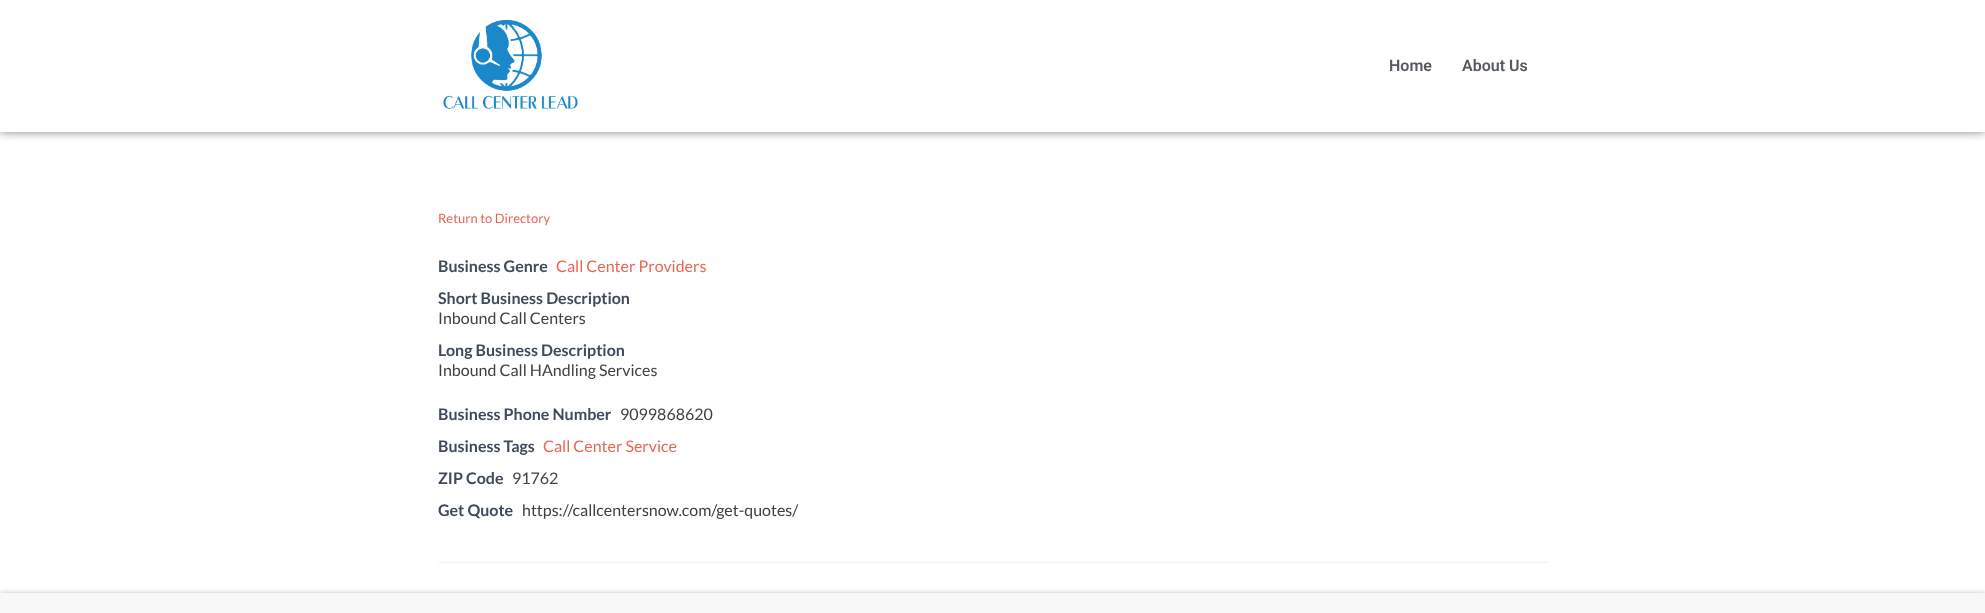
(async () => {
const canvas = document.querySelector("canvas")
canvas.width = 1985
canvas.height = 613
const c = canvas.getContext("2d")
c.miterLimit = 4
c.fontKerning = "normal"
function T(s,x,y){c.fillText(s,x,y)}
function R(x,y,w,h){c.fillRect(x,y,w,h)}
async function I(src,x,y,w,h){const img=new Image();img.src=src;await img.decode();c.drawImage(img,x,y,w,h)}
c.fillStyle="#fff"
R(0,0,1985,613)
c.save()
c.beginPath()
c.rect(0,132,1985,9)
c.clip()
c.fillStyle="#00000080"
c.filter="blur(5px)"
c.beginPath()
c.rect(0,0,1985,132)
c.fill()
c.filter="none"
c.restore()
await I("1.png",443,20,135,89)
c.font="600 16px Roboto"
c.fillStyle="#54595f"
T("Home",1389,71)
T("About Us",1462,71)
c.fillStyle="#f2f2f2"
R(438,562,1110,1)
c.font="13px Lato"
c.fillStyle="#e96656"
T("Return to Directory",438,223)
c.font="bold 16px Lato"
c.fillStyle="#3f4b5b"
T("Business Genre",438,272)
c.font="16px Lato"
c.fillStyle="#e96656"
T("Call Center Providers",556,272)
c.font="bold 16px Lato"
c.fillStyle="#3f4b5b"
T("Short Business Description",438,304)
c.font="16px Lato"
c.fillStyle="#404040"
T("Inbound Call Centers",438,324)
c.font="bold 16px Lato"
c.fillStyle="#3f4b5b"
T("Long Business Description",438,356)
c.font="16px Lato"
c.fillStyle="#404040"
T("Inbound Call HAndling Services",438,376)
c.font="bold 16px Lato"
c.fillStyle="#3f4b5b"
T("Business Phone Number",438,420)
c.font="16px Lato"
c.fillStyle="#404040"
T("9099868620",620,420)
c.font="bold 16px Lato"
c.fillStyle="#3f4b5b"
T("Business Tags",438,452)
c.font="16px Lato"
c.fillStyle="#e96656"
T("Call Center Service",543,452)
c.font="bold 16px Lato"
c.fillStyle="#3f4b5b"
T("ZIP Code",438,484)
c.font="16px Lato"
c.fillStyle="#404040"
T("91762",512,484)
c.font="bold 16px Lato"
c.fillStyle="#3f4b5b"
T("Get Quote",438,516)
c.font="16px Lato"
c.fillStyle="#404040"
T("https://callcentersnow.com/get-quotes/",522,516)
c.fillStyle="#00000042"
c.filter="blur(2.5px)"
c.beginPath()
c.rect(0,593,1985,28)
c.fill()
c.filter="none"
c.fillStyle="#f8f8f8"
R(0,593,1985,20)
})()
